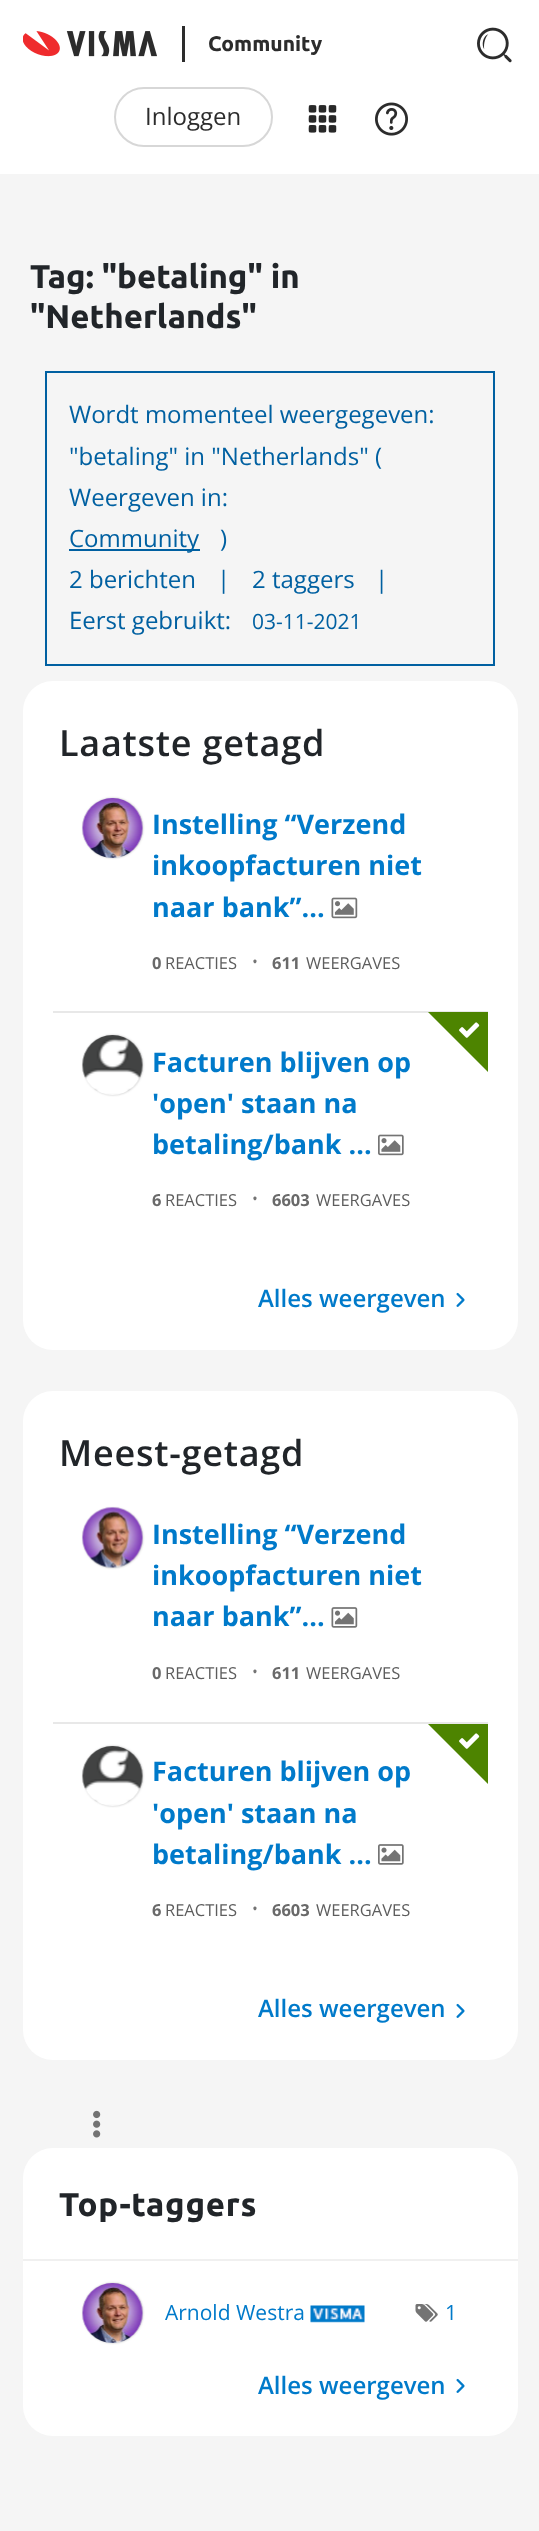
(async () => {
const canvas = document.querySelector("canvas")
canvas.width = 539
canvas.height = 2531
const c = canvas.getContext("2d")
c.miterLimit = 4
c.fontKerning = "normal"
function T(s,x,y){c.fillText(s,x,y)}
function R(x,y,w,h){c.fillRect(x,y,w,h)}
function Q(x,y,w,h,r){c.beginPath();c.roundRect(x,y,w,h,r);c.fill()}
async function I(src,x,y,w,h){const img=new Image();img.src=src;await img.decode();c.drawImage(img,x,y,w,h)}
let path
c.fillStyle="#f5f5f5"
R(0,0,539,2531)
c.fillStyle="#fff"
R(0,0,539,174)
await I("1.png",23,31,134,26)
c.fillStyle="#2c2c2c"
R(182,26,3,36)
c.font="bold 21px Ubuntu"
T("Community",208,51)
await I("2.png",477,27,35,36)
c.beginPath()
c.roundRect(115,88,157,58,29)
c.strokeStyle="#d7d7d7"
c.lineWidth=2
c.stroke()
c.font="24px Open Sans"
T("Inloggen",145,125)
await I("3.png",308,105,29,28)
await I("4.png",375,102,33,34)
c.font="bold 33px Ubuntu"
c.fillStyle="#212529"
T("Tag: \"betaling\" in",30,288)
T("\"Netherlands\"",30,328)
c.strokeStyle="#0060a1"
c.strokeRect(46,372,448,293)
c.font="24px Open Sans"
c.fillStyle="#0060a1"
T("Wordt momenteel weergegeven:",69,423)
T("\"betaling\" in \"Netherlands\" (",69,465)
T("Weergeven in:",69,506)
R(69,549,131,2)
T("Community",69,547)
T(")",220,547)
T("2 berichten",69,588)
T("|",217,588)
T("2 taggers",252,588)
T("|",375,588)
T("Eerst gebruikt:",69,629)
c.font="21px Open Sans"
T("03-11-2021",252,629)
c.fillStyle="#fff"
Q(23,681,495,669,30)
c.letterSpacing="0.75px"
c.font="600 36px Open Sans"
c.fillStyle="#212529"
T("Laatste getagd",59,756)
c.fillStyle="#c4c4c4"
c.filter="blur(1px)"
c.beginPath()
c.roundRect(83,798,60,60,30)
c.fill()
c.filter="none"
await I("5.png",82,798,61,60)
c.letterSpacing="0px"
c.font="bold 27px Open Sans"
c.fillStyle="#007aca"
T("Instelling “Verzend",152,834)
T("inkoopfacturen niet",152,875)
T("naar bank”...",152,917)
await I("6.png",331,897,27,22)
c.font="bold 16.5px Open Sans"
c.fillStyle="#696969"
T("0",152,969)
c.font="16.5px Open Sans"
c.fillStyle="#5d5d5d"
T("REACTIES",165,969)
c.font="300 21px Open Sans"
c.fillStyle="#747474"
T("•",251,969)
c.font="bold 16.5px Open Sans"
c.fillStyle="#696969"
T("611",272,969)
c.font="16.5px Open Sans"
c.fillStyle="#5d5d5d"
T("WEERGAVES",306,969)
c.fillStyle="#e8e8e8"
R(53,1011,435,2)
c.fillStyle="#c4c4c4"
c.filter="blur(1px)"
c.beginPath()
c.roundRect(83,1035,60,60,30)
c.fill()
c.filter="none"
await I("7.png",82,1035,61,60)
c.font="bold 27px Open Sans"
c.fillStyle="#007aca"
T("Facturen blijven op",152,1072)
T("'open' staan na",152,1113)
T("betaling/bank ...",152,1154)
await I("8.png",378,1134,26,22)
c.font="bold 16.5px Open Sans"
c.fillStyle="#696969"
T("6",152,1206)
c.font="16.5px Open Sans"
c.fillStyle="#5d5d5d"
T("REACTIES",165,1206)
c.font="300 21px Open Sans"
c.fillStyle="#747474"
T("•",251,1206)
c.font="bold 16.5px Open Sans"
c.fillStyle="#696969"
T("6603",272,1206)
c.font="16.5px Open Sans"
c.fillStyle="#5d5d5d"
T("WEERGAVES",316,1206)
c.fillStyle="#4d8400"
path = new Path2D("M428 1012h60v60z")
c.fill(path)
await I("9.png",459,1022,21,16)
c.font="600 24px Open Sans"
c.fillStyle="#007aca"
T("Alles weergeven",258,1307)
await I("10.png",456,1292,9,15)
c.fillStyle="#fff"
Q(23,1391,495,669,30)
c.letterSpacing="0.75px"
c.font="600 36px Open Sans"
c.fillStyle="#212529"
T("Meest-getagd",59,1466)
c.fillStyle="#c4c4c4"
c.filter="blur(1px)"
c.beginPath()
c.roundRect(83,1508,60,60,30)
c.fill()
c.filter="none"
await I("11.png",82,1507,61,61)
c.letterSpacing="0px"
c.font="bold 27px Open Sans"
c.fillStyle="#007aca"
T("Instelling “Verzend",152,1544)
T("inkoopfacturen niet",152,1585)
T("naar bank”...",152,1626)
await I("12.png",331,1607,27,21)
c.font="bold 16.5px Open Sans"
c.fillStyle="#696969"
T("0",152,1679)
c.font="16.5px Open Sans"
c.fillStyle="#5d5d5d"
T("REACTIES",165,1679)
c.font="300 21px Open Sans"
c.fillStyle="#747474"
T("•",251,1679)
c.font="bold 16.5px Open Sans"
c.fillStyle="#696969"
T("611",272,1679)
c.font="16.5px Open Sans"
c.fillStyle="#5d5d5d"
T("WEERGAVES",306,1679)
c.fillStyle="#e8e8e8"
R(53,1722,435,2)
c.fillStyle="#c4c4c4"
c.filter="blur(1px)"
c.beginPath()
c.roundRect(83,1746,60,60,30)
c.fill()
c.filter="none"
await I("7.png",82,1746,61,60)
c.font="bold 27px Open Sans"
c.fillStyle="#007aca"
T("Facturen blijven op",152,1781)
T("'open' staan na",152,1823)
T("betaling/bank ...",152,1864)
await I("13.png",378,1844,26,21)
c.font="bold 16.5px Open Sans"
c.fillStyle="#696969"
T("6",152,1916)
c.font="16.5px Open Sans"
c.fillStyle="#5d5d5d"
T("REACTIES",165,1916)
c.font="300 21px Open Sans"
c.fillStyle="#747474"
T("•",251,1916)
c.font="bold 16.5px Open Sans"
c.fillStyle="#696969"
T("6603",272,1916)
c.font="16.5px Open Sans"
c.fillStyle="#5d5d5d"
T("WEERGAVES",316,1916)
c.fillStyle="#4d8400"
path = new Path2D("M428 1724h60v60z")
c.fill(path)
await I("9.png",459,1733,21,16)
c.font="600 24px Open Sans"
c.fillStyle="#007aca"
T("Alles weergeven",258,2017)
await I("10.png",456,2003,9,15)
await I("14.png",93,2110,8,28)
c.fillStyle="#fff"
Q(23,2148,495,288,30)
c.fillStyle="#f0f0f0"
R(23,2259,495,2)
c.letterSpacing="0.75px"
c.font="bold 33px Ubuntu"
c.fillStyle="#212529"
T("Top-taggers",59,2216)
c.fillStyle="#c4c4c4"
c.filter="blur(1px)"
c.beginPath()
c.roundRect(83,2283,60,60,30)
c.fill()
c.filter="none"
await I("5.png",82,2283,61,60)
c.letterSpacing="0px"
c.font="21px Open Sans"
c.fillStyle="#007aca"
T("Arnold Westra",165,2320)
await I("15.png",310,2305,55,18)
await I("16.png",415,2304,23,18)
T("1",445,2320)
c.font="600 24px Open Sans"
T("Alles weergeven",258,2394)
await I("10.png",456,2378,9,15)
})()
